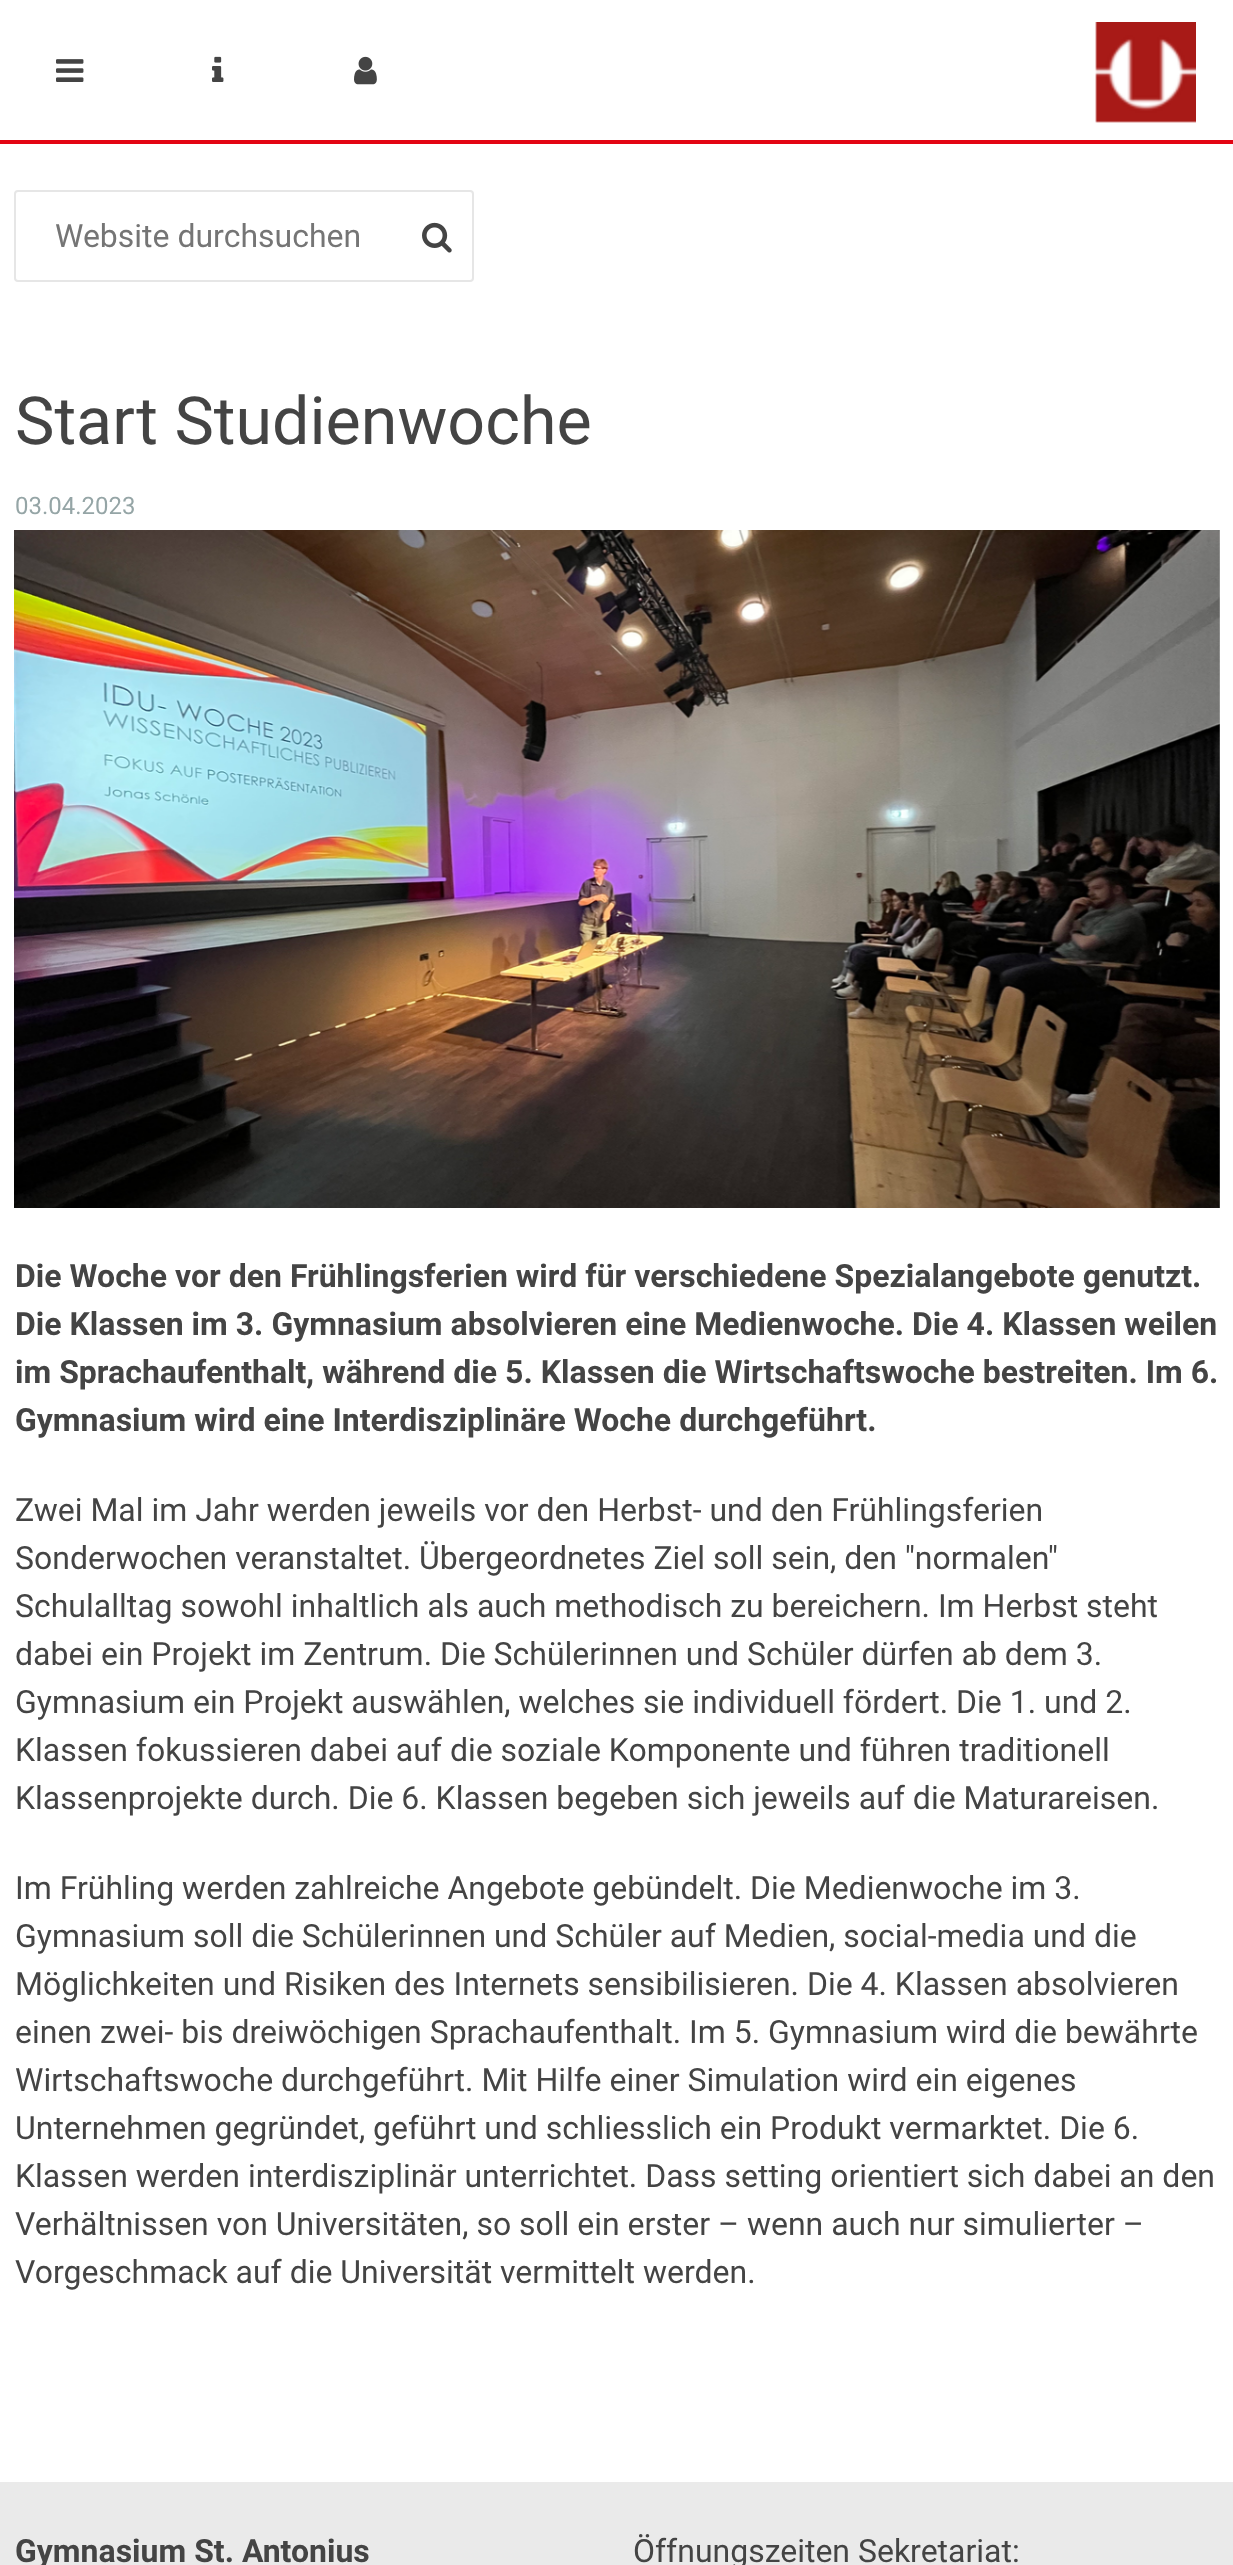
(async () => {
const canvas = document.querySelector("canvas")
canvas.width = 1233
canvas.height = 2565
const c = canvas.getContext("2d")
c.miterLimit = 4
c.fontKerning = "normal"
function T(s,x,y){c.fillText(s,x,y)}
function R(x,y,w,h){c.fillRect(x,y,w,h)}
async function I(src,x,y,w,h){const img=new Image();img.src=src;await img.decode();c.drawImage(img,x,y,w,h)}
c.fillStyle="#fff"
R(0,0,1233,2565)
c.fillStyle="#e30513"
R(0,140,1233,4)
await I("1.png",56,59,28,23)
await I("2.png",212,56,12,26)
await I("3.png",354,56,23,29)
await I("4.png",1095,22,101,101)
c.beginPath()
c.roundRect(15,191,458,90,3)
c.strokeStyle="#e6e6e6"
c.lineWidth=2
c.stroke()
c.font="32px Roboto"
c.fillStyle="#757575"
T("Website durchsuchen",55,247)
await I("5.png",422,222,30,31)
c.font="66.4px Roboto"
c.fillStyle="#444"
T("Start Studienwoche",15,444)
c.font="24px Roboto"
c.fillStyle="#95a5a6"
T("03.04.2023",15,514)
await I("6.png",14,530,1206,678)
c.font="bold 32px Roboto"
c.fillStyle="#444"
T("Die Woche vor den Frühlingsferien wird für verschiedene Spezialangebote genutzt.",15,1287)
T("Die Klassen im 3. Gymnasium absolvieren eine Medienwoche. Die 4. Klassen weilen",15,1335)
T("im Sprachaufenthalt, während die 5. Klassen die Wirtschaftswoche bestreiten. Im 6.",15,1383)
T("Gymnasium wird eine Interdisziplinäre Woche durchgeführt.",15,1431)
c.font="32px Roboto"
T("Zwei Mal im Jahr werden jeweils vor den Herbst- und den Frühlingsferien",15,1521)
T("Sonderwochen veranstaltet. Übergeordnetes Ziel soll sein, den \"normalen\"",15,1569)
T("Schulalltag sowohl inhaltlich als auch methodisch zu bereichern. Im Herbst steht",15,1617)
T("dabei ein Projekt im Zentrum. Die Schülerinnen und Schüler dürfen ab dem 3.",15,1665)
T("Gymnasium ein Projekt auswählen, welches sie individuell fördert. Die 1. und 2.",15,1713)
T("Klassen fokussieren dabei auf die soziale Komponente und führen traditionell",15,1761)
T("Klassenprojekte durch. Die 6. Klassen begeben sich jeweils auf die Maturareisen.",15,1809)
T("Im Frühling werden zahlreiche Angebote gebündelt. Die Medienwoche im 3.",15,1899)
T("Gymnasium soll die Schülerinnen und Schüler auf Medien, social-media und die",15,1947)
T("Möglichkeiten und Risiken des Internets sensibilisieren. Die 4. Klassen absolvieren",15,1995)
T("einen zwei- bis dreiwöchigen Sprachaufenthalt. Im 5. Gymnasium wird die bewährte",15,2043)
T("Wirtschaftswoche durchgeführt. Mit Hilfe einer Simulation wird ein eigenes",15,2091)
T("Unternehmen gegründet, geführt und schliesslich ein Produkt vermarktet. Die 6.",15,2139)
T("Klassen werden interdisziplinär unterrichtet. Dass setting orientiert sich dabei an den",15,2187)
T("Verhältnissen von Universitäten, so soll ein erster – wenn auch nur simulierter –",15,2235)
T("Vorgeschmack auf die Universität vermittelt werden.",15,2283)
c.fillStyle="#eaeaea"
R(0,2482,1233,83)
c.font="bold 32px Roboto"
c.fillStyle="#444"
T("Gymnasium St. Antonius",15,2562)
c.font="32px Roboto"
T("Öffnungszeiten Sekretariat:",633,2562)
})()
